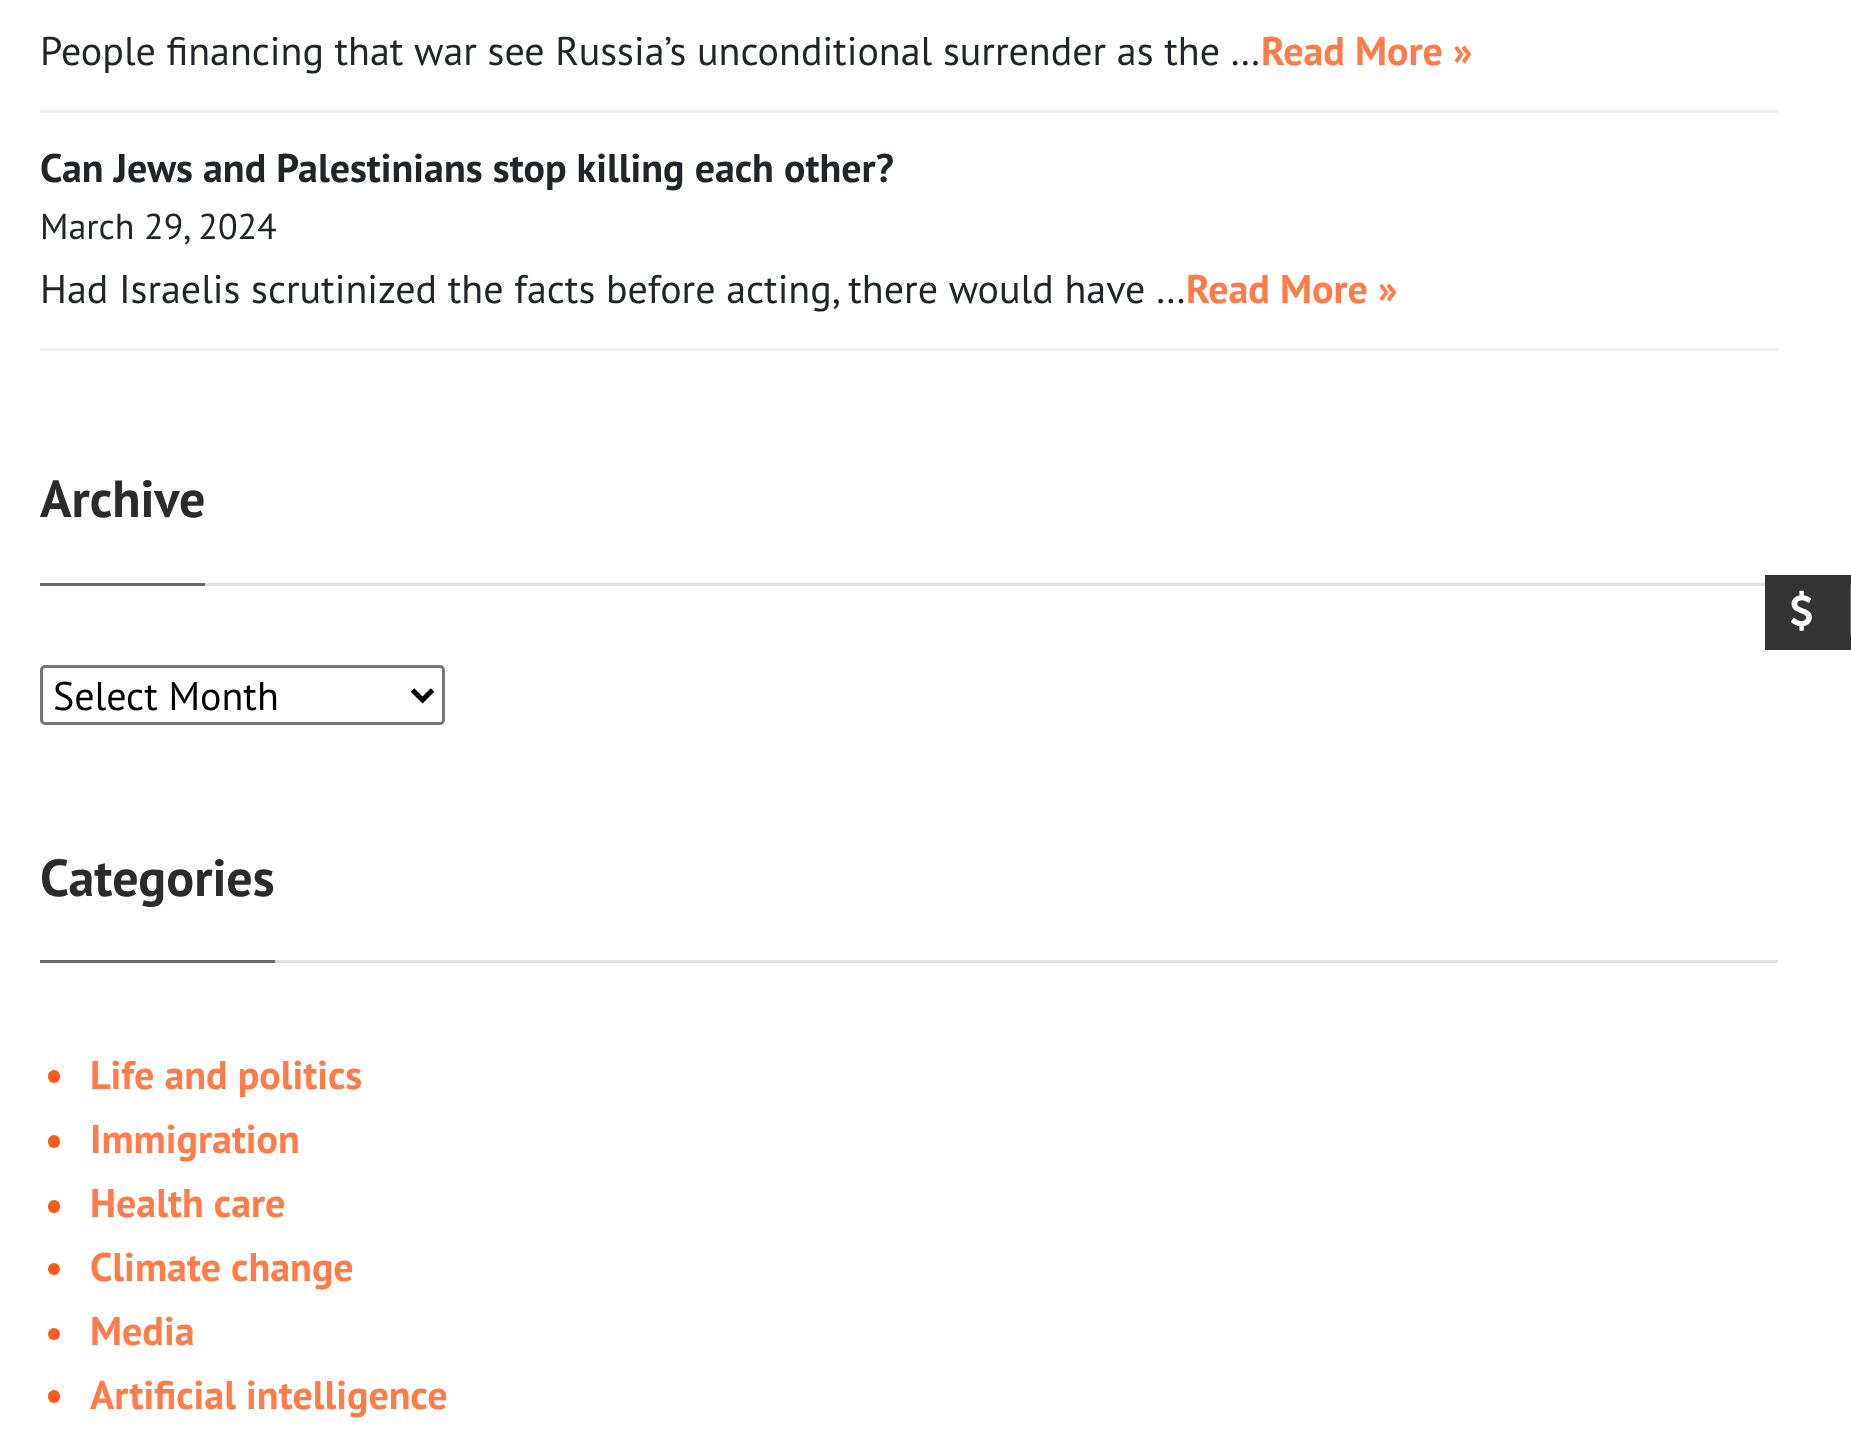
(async () => {
const canvas = document.querySelector("canvas")
canvas.width = 1851
canvas.height = 1438
const c = canvas.getContext("2d")
c.miterLimit = 4
c.fontKerning = "normal"
function T(s,x,y){c.fillText(s,x,y)}
function R(x,y,w,h){c.fillRect(x,y,w,h)}
function Q(x,y,w,h,r){c.beginPath();c.roundRect(x,y,w,h,r);c.fill()}
async function I(src,x,y,w,h){const img=new Image();img.src=src;await img.decode();c.drawImage(img,x,y,w,h)}
let path
c.fillStyle="#fff"
R(0,0,1851,1438)
c.fillStyle="#eee"
R(40,110,1738,3)
c.font="40px PT Sans"
c.fillStyle="#212529"
T("People financing that war see Russia’s unconditional surrender as the …",40,65)
c.font="bold 40px PT Sans"
c.fillStyle="#ff7b47"
T("Read More »",1261,65)
c.fillStyle="#eee"
R(40,348,1738,3)
c.fillStyle="#212529"
T("Can Jews and Palestinians stop killing each other?",40,182)
c.font="36px PT Sans"
T("March 29, 2024",40,239)
c.font="40px PT Sans"
T("Had Israelis scrutinized the facts before acting, there would have …",40,303)
c.font="bold 40px PT Sans"
c.fillStyle="#ff7b47"
T("Read More »",1186,303)
c.fillStyle="#dedede"
R(205,583,1560,3)
c.fillStyle="#686868"
R(40,583,165,3)
c.font="bold 52px PT Sans"
c.fillStyle="#2b2b2b"
T("Archive",40,517)
c.beginPath()
c.roundRect(41.5,666.5,402,57,3.5)
c.strokeStyle="#767676"
c.lineWidth=3
c.stroke()
path = new Path2D("M412.5 690l10 10l10-10")
c.strokeStyle="#000"
c.lineWidth=5
c.stroke(path)
c.font="40px PT Sans"
c.fillStyle="#000"
T("Select Month",53,710)
c.fillStyle="#dedede"
R(275,960,1503,3)
c.fillStyle="#686868"
R(40,960,235,3)
c.font="bold 52px PT Sans"
c.fillStyle="#2b2b2b"
T("Categories",40,896)
c.fillStyle="#ff5a19"
Q(48,1070,12,13,6)
c.font="bold 40px PT Sans"
c.fillStyle="#ff7b47"
T("Life and politics",90,1089)
c.fillStyle="#ff5a19"
Q(48,1135,12,13,6)
c.fillStyle="#ff7b47"
T("Immigration",90,1153)
c.fillStyle="#ff5a19"
Q(48,1200,12,13,6)
c.fillStyle="#ff7b47"
T("Health care",90,1217)
c.fillStyle="#ff5a19"
c.beginPath()
c.arc(54,1269,6,0,7)
c.fill()
c.fillStyle="#ff7b47"
T("Climate change",90,1281)
c.fillStyle="#ff5a19"
c.beginPath()
c.arc(54,1334,6,0,7)
c.fill()
c.fillStyle="#ff7b47"
T("Media",90,1345)
c.fillStyle="#ff5a19"
Q(48,1390,12,13,6)
c.fillStyle="#ff7b47"
T("Artificial intelligence",90,1409)
c.fillStyle="#333"
R(1765,575,86,75)
await I("1.png",1791,590,21,41)
c.fillStyle="#767676"
R(1850,585,1,50)
})()
